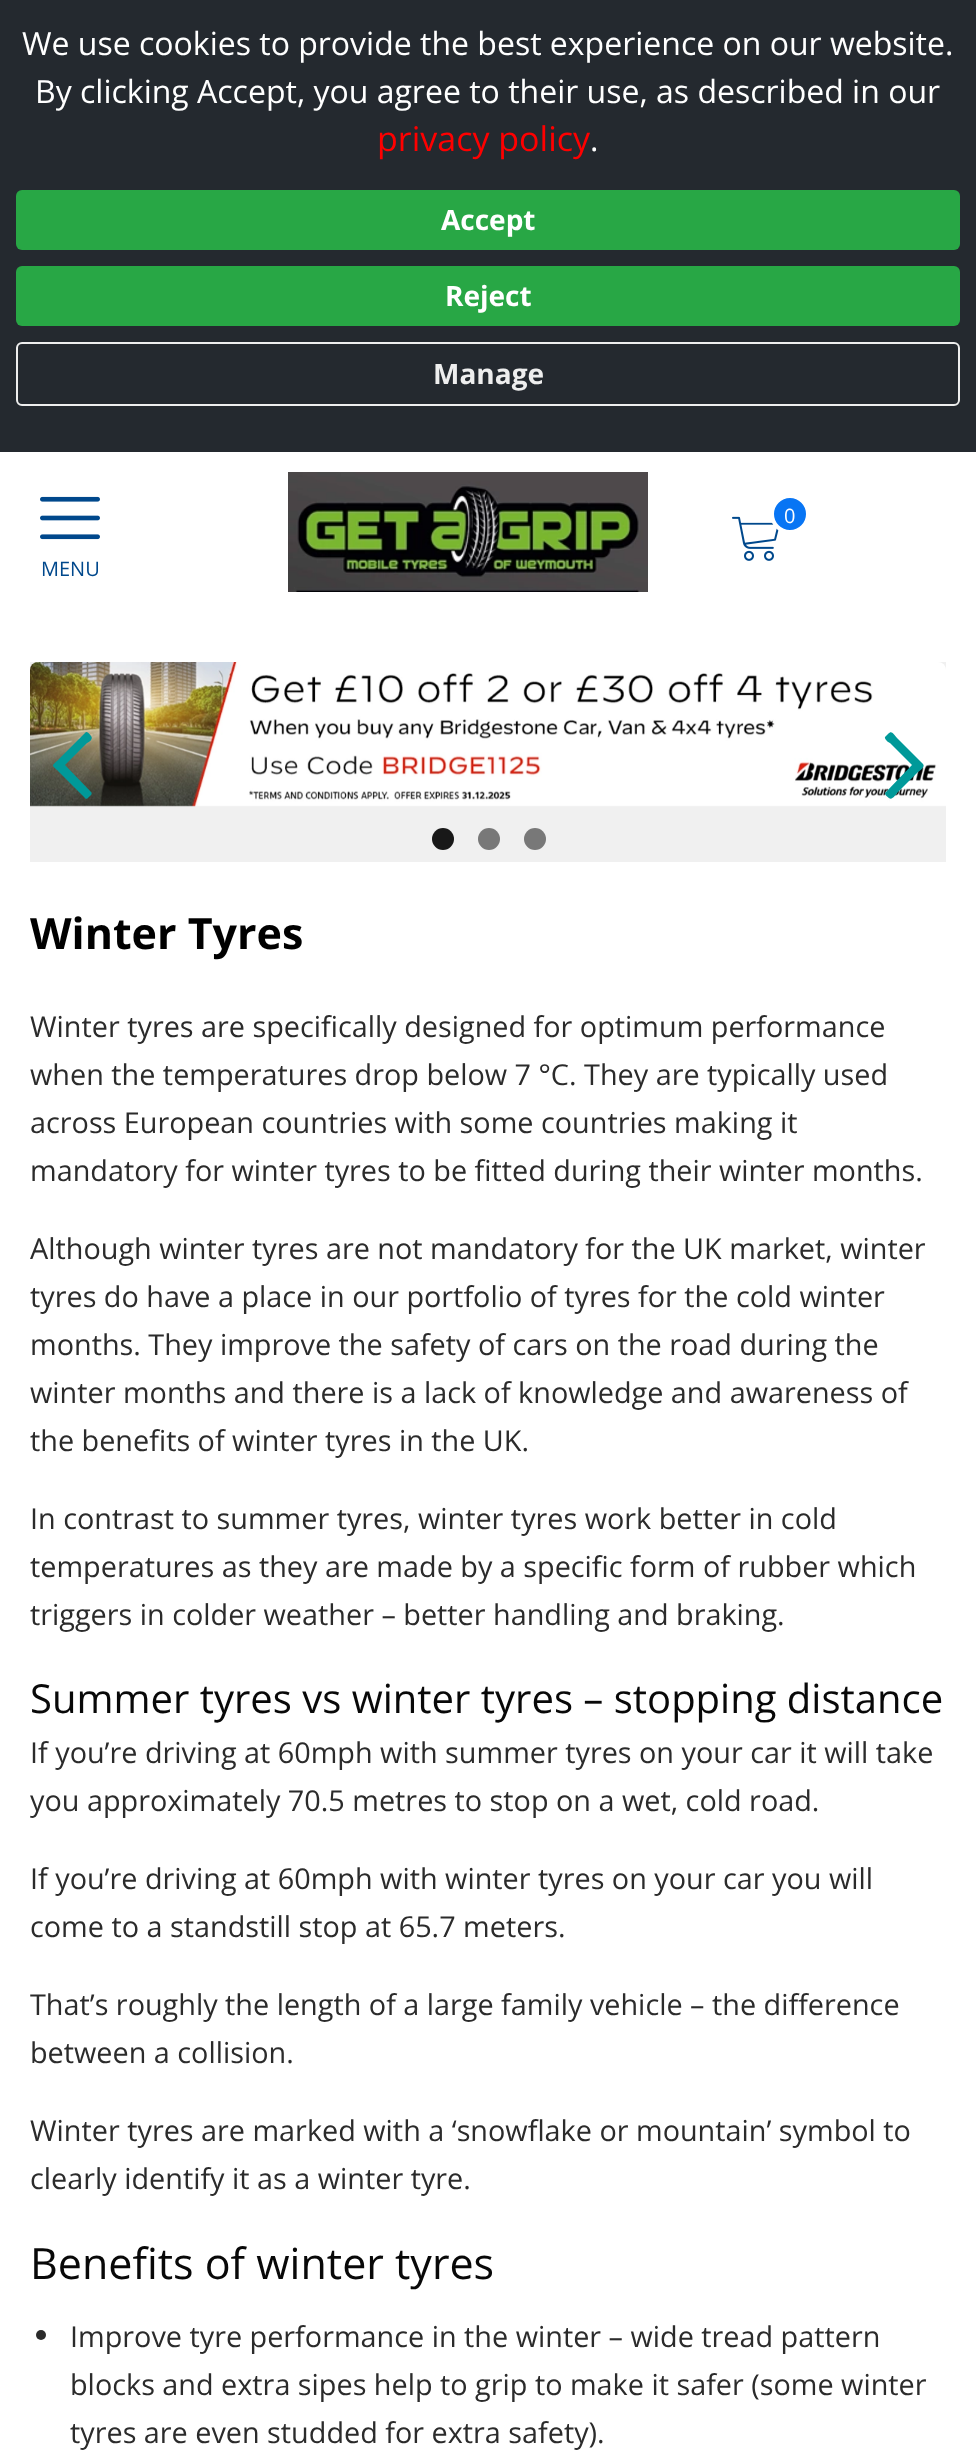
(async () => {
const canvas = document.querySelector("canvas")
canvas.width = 976
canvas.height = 2460
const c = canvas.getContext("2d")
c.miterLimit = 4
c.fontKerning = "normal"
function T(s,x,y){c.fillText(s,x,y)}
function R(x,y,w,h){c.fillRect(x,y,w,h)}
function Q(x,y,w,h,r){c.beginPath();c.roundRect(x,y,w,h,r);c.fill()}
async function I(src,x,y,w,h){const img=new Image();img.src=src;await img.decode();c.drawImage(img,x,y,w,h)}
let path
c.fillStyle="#fff"
R(0,0,976,2460)
c.fillStyle="#24292f"
R(0,0,976,452)
c.font="32px Open Sans"
c.fillStyle="#fff"
T("We use cookies to provide the best experience on our website.",22,55)
T("By clicking Accept, you agree to their use, as described in our",35,103)
c.font="34px Open Sans"
c.fillStyle="#f00"
T("privacy policy",377,151)
c.font="32px Open Sans"
c.fillStyle="#fff"
T(".",590,151)
c.fillStyle="#28a745"
Q(16,190,944,60,6)
c.font="bold 28px Open Sans"
c.fillStyle="#fff"
T("Accept",441,230)
c.fillStyle="#28a745"
Q(16,266,944,60,6)
c.fillStyle="#fff"
T("Reject",445,306)
c.beginPath()
c.roundRect(17,343,942,62,5)
c.strokeStyle="#eee"
c.lineWidth=2
c.stroke()
c.fillStyle="#eee"
T("Manage",433,384)
await I("1.png",288,472,360,120)
await I("2.png",732,516,47,45)
c.fillStyle="#0875f4"
c.beginPath()
c.arc(790,514,18,0,7)
c.fill()
c.strokeStyle="#fff"
c.lineWidth=4
c.stroke()
c.font="20px Open Sans"
c.fillStyle="#fff"
T("0",784,523)
await I("3.png",40,496,60,44)
c.fillStyle="#00488c"
T("MENU",41,576)
c.fillStyle="#f0f0f0"
R(30,662,916,200)
await I("4.png",30,662,916,145)
c.fillStyle="#099"
path = new Path2D("M91 736c3 3-3 7-4 7l-22 22l26 27c2 2-1 4-2 5c-1 1-3 3-4 1l-26-26c-8-8-8-5 0-13l26-26c2-3 5 2 6 3z")
c.fill(path)
path = new Path2D("M923 764c3 3-5 8-5 8l-21 21c0 0-5 8-8 5c-1-1-6-4-3-6l26-27l-22-22c-1 0-6-4-5-6l3-3c4-4 5 0 9 4z")
c.fill(path)
c.fillStyle="#181818"
c.beginPath()
c.arc(443,839,11,0,7)
c.fill()
c.fillStyle="#787878"
c.beginPath()
c.arc(489,839,11,0,7)
c.fill()
c.beginPath()
c.arc(535,839,11,0,7)
c.fill()
c.font="bold 43px Open Sans"
c.fillStyle="#000"
T("Winter Tyres",30,949)
c.font="28.8px Open Sans"
c.fillStyle="#2b2b2b"
T("Winter tyres are specifically designed for optimum performance",30,1037)
T("when the temperatures drop below 7 °C. They are typically used",30,1085)
T("across European countries with some countries making it",30,1133)
T("mandatory for winter tyres to be fitted during their winter months.",30,1181)
T("Although winter tyres are not mandatory for the UK market, winter",30,1259)
T("tyres do have a place in our portfolio of tyres for the cold winter",30,1307)
T("months. They improve the safety of cars on the road during the",30,1355)
T("winter months and there is a lack of knowledge and awareness of",30,1403)
T("the benefits of winter tyres in the UK.",30,1451)
T("In contrast to summer tyres, winter tyres work better in cold",30,1529)
T("temperatures as they are made by a specific form of rubber which",30,1577)
T("triggers in colder weather – better handling and braking.",30,1625)
c.font="40px Open Sans"
c.fillStyle="#080808"
T("Summer tyres vs winter tyres – stopping distance",30,1713)
c.font="28.8px Open Sans"
c.fillStyle="#2b2b2b"
T("If you’re driving at 60mph with summer tyres on your car it will take",30,1763)
T("you approximately 70.5 metres to stop on a wet, cold road.",30,1811)
T("If you’re driving at 60mph with winter tyres on your car you will",30,1889)
T("come to a standstill stop at 65.7 meters.",30,1937)
T("That’s roughly the length of a large family vehicle – the difference",30,2015)
T("between a collision.",30,2063)
T("Winter tyres are marked with a ‘snowflake or mountain’ symbol to",30,2141)
T("clearly identify it as a winter tyre.",30,2189)
c.font="43px Open Sans"
c.fillStyle="#080808"
T("Benefits of winter tyres",30,2279)
c.fillStyle="#2b2b2b"
c.beginPath()
c.arc(41,2335,5,0,7)
c.fill()
c.font="28.8px Open Sans"
T("Improve tyre performance in the winter – wide tread pattern",70,2347)
T("blocks and extra sipes help to grip to make it safer (some winter",70,2395)
T("tyres are even studded for extra safety).",70,2443)
})()
